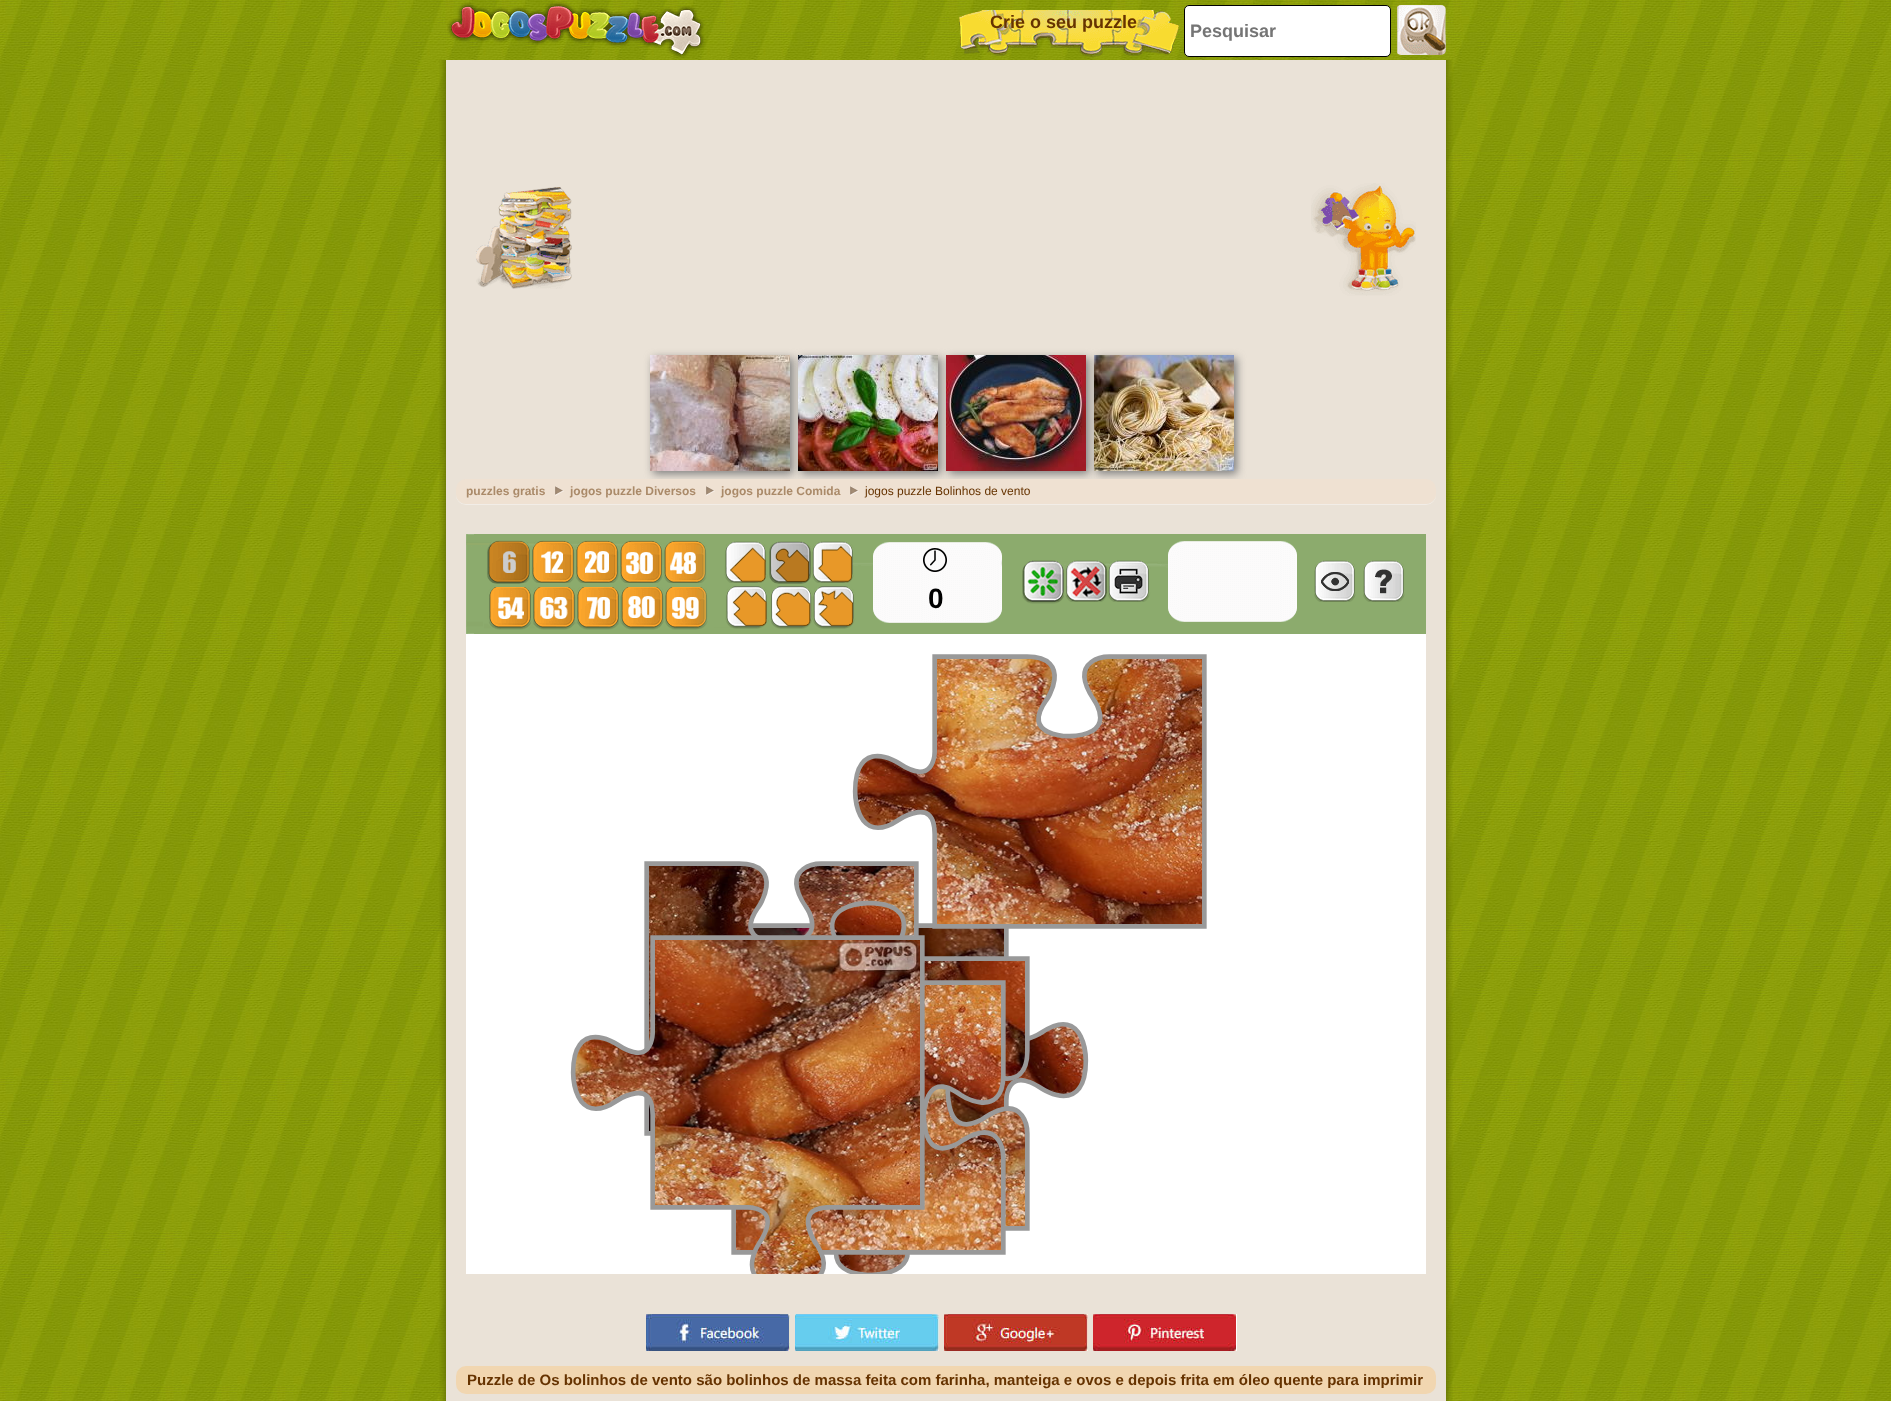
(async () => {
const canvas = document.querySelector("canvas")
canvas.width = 1891
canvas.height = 1401
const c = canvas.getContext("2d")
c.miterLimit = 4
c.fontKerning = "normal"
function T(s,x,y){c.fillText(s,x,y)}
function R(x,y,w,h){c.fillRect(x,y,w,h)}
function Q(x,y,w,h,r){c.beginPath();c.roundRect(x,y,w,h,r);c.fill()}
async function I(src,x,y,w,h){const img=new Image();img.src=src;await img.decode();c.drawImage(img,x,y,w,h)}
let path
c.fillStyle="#fff"
R(0,0,1891,1401)
await I("1.png",0,0,1891,1401)
await I("2.png",447,2,258,56)
await I("3.png",959,10,220,47)
c.font="bold 18px Liberation Sans"
c.fillStyle="#630"
T("Crie o seu puzzle",990,28)
c.fillStyle="#fff"
c.beginPath()
c.roundRect(1184.5,5.5,206,51,4.5)
c.fill()
c.strokeStyle="#000"
c.stroke()
c.fillStyle="#757575"
T("Pesquisar",1190,37)
await I("4.png",1397,5,49,50)
await I("5.png",439,60,1014,1341)
await I("6.png",476,187,96,102)
await I("7.png",1311,183,105,113)
c.fillStyle="#808080"
c.filter="blur(4px)"
c.beginPath()
c.rect(653,358,140,116)
c.fill()
c.filter="none"
await I("8.png",650,355,140,116)
c.filter="blur(4px)"
c.beginPath()
c.rect(801,358,140,116)
c.fill()
c.filter="none"
await I("9.png",798,355,140,116)
c.filter="blur(4px)"
c.beginPath()
c.rect(949,358,140,116)
c.fill()
c.filter="none"
await I("10.png",946,355,140,116)
c.filter="blur(4px)"
c.beginPath()
c.rect(1097,358,140,116)
c.fill()
c.filter="none"
await I("11.png",1094,355,140,116)
c.fillStyle="#eae2d7"
R(651,479,588,3)
c.save()
path = new Path2D("M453 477h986v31h-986zm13 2h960c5.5 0 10 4.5 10 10v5c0 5.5-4.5 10-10 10h-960c-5.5 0-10-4.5-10-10v-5c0-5.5 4.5-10 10-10z")
c.clip(path,"evenodd")
c.fillStyle="#ffffff66"
c.filter="blur(0.5px)"
c.beginPath()
c.roundRect(456,480,980,25,10)
c.fill()
c.filter="none"
c.restore()
c.fillStyle="#f0e1d1cc"
Q(456,479,980,25,10)
c.font="bold 12px Liberation Sans"
c.fillStyle="#aa8a69"
T("puzzles gratis",466,495)
await I("12.png",555,486,9,10)
T("jogos puzzle Diversos",570,495)
await I("12.png",706,486,9,10)
T("jogos puzzle Comida",721,495)
await I("12.png",850,486,9,10)
c.font="12px Liberation Sans"
c.fillStyle="#630"
T("jogos puzzle Bolinhos de vento",865,495)
c.fillStyle="#fff"
R(466,634,960,640)
await I("13.png",466,534,960,100)
await I("14.png",570,654,637,620)
c.fillStyle="#00000033"
Q(487,542,42,42,10)
Q(769,542,42,42,10)
c.font="bold 28px Liberation Sans"
c.fillStyle="#000"
T("0",928,608)
await I("15.png",646,1314,144,37)
await I("16.png",795,1314,144,37)
await I("17.png",944,1314,144,37)
await I("18.png",1093,1314,144,37)
c.fillStyle="#f1d6b0"
Q(456,1366,980,28,10)
c.font="bold 15px Liberation Sans"
c.fillStyle="#630"
T("Puzzle de Os bolinhos de vento são bolinhos de massa feita com farinha, manteiga e ovos e depois frita em óleo quente para imprimir",467,1385)
})()
